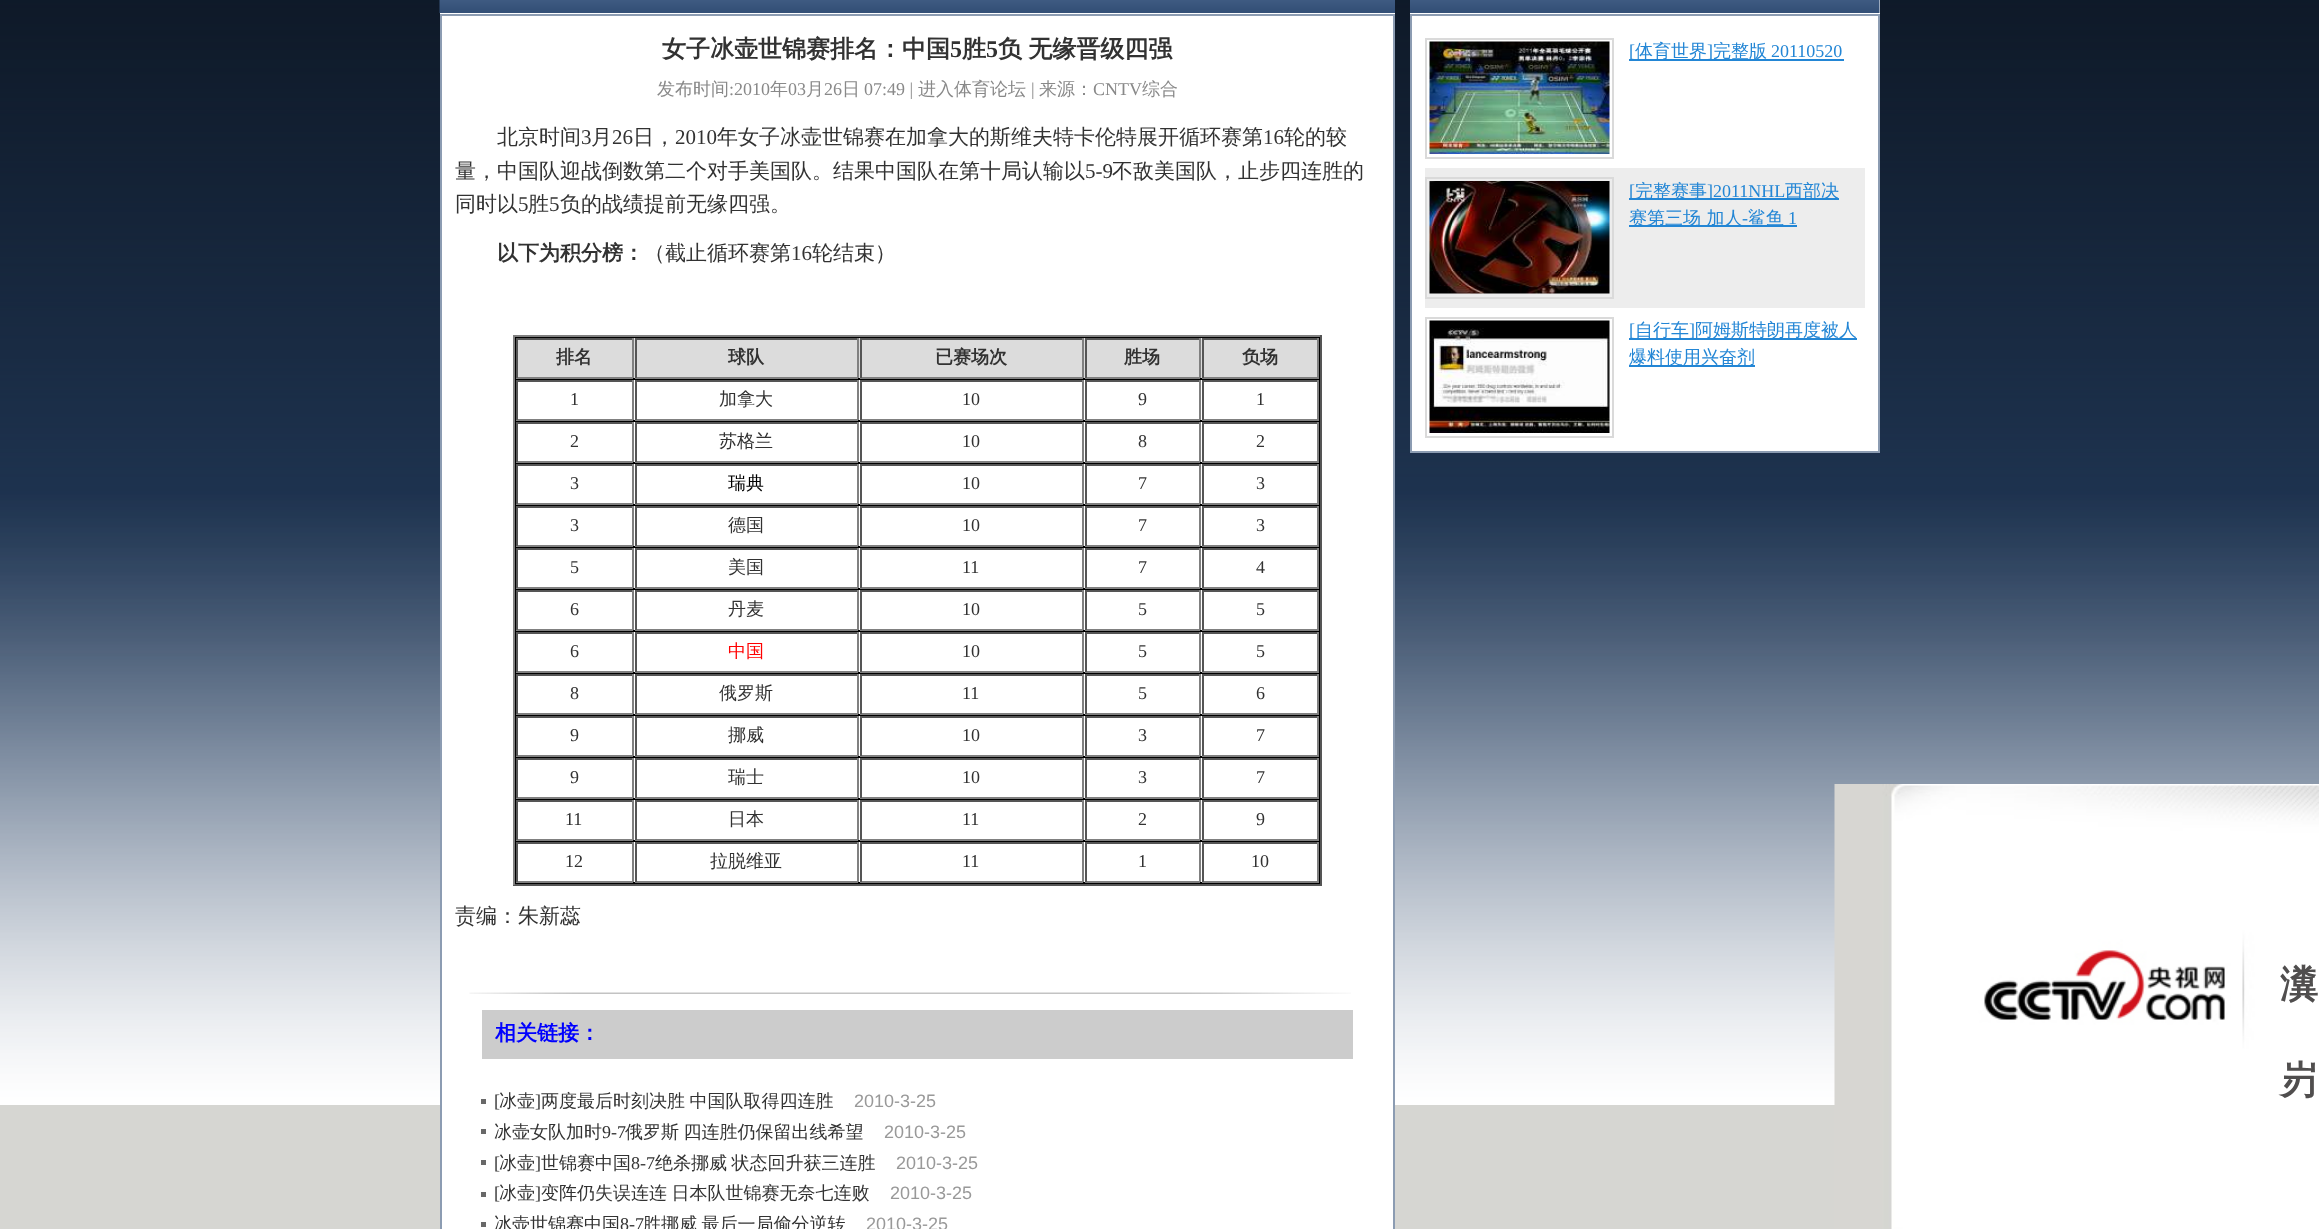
(async () => {
const canvas = document.querySelector("canvas")
canvas.width = 2319
canvas.height = 1229
const c = canvas.getContext("2d")
c.miterLimit = 4
c.fontKerning = "normal"
function T(s,x,y){c.fillText(s,x,y)}
function R(x,y,w,h){c.fillRect(x,y,w,h)}
async function I(src,x,y,w,h){const img=new Image();img.src=src;await img.decode();c.drawImage(img,x,y,w,h)}
c.fillStyle="#d6d6d2"
R(0,0,2319,1229)
await I("1.png",0,0,2319,1105)
c.fillStyle="#fff"
R(440,13,955,1216)
await I("2.png",439,0,956,13)
c.strokeStyle="#8c9cb2"
c.lineWidth=2
c.strokeRect(441,15,953,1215)
c.font="bold 24px WenQuanYi Zen Hei"
c.fillStyle="#323232"
T("女子冰壶世锦赛排名：中国",662,57)
c.font="bold 24px Liberation Serif"
T("5",950,57)
c.font="bold 24px WenQuanYi Zen Hei"
T("胜",962,57)
c.font="bold 24px Liberation Serif"
T("5",986,57)
c.wordSpacing="-1px"
c.font="bold 24px WenQuanYi Zen Hei"
T("负 无缘晋级四强",998,57)
c.wordSpacing="0px"
c.font="500 18px WenQuanYi Zen Hei"
c.fillStyle="#898989"
T("发布时间",657,95)
c.font="18px Liberation Serif"
T(":2010",729,95)
c.font="500 18px WenQuanYi Zen Hei"
T("年",770,95)
c.font="18px Liberation Serif"
T("03",788,95)
c.font="500 18px WenQuanYi Zen Hei"
T("月",806,95)
c.font="18px Liberation Serif"
T("26",824,95)
c.font="500 18px WenQuanYi Zen Hei"
T("日",842,95)
c.font="18px Liberation Serif"
T("07:49 |",864,95)
c.font="500 18px WenQuanYi Zen Hei"
T("进入体育论坛",918,95)
c.font="18px Liberation Serif"
T("|",1031,95)
c.font="500 18px WenQuanYi Zen Hei"
T("来源：",1039,95)
c.font="18px Liberation Serif"
T("CNTV",1093,95)
c.font="500 18px WenQuanYi Zen Hei"
T("综合",1142,95)
c.font="500 21px WenQuanYi Zen Hei"
c.fillStyle="#323232"
T("北京时间",497,144)
c.font="21px Liberation Serif"
T("3",581,144)
c.font="500 21px WenQuanYi Zen Hei"
T("月",591,144)
c.font="21px Liberation Serif"
T("26",612,144)
c.font="500 21px WenQuanYi Zen Hei"
T("日，",633,144)
c.font="21px Liberation Serif"
T("2010",675,144)
c.font="500 21px WenQuanYi Zen Hei"
T("年女子冰壶世锦赛在加拿大的斯维夫特卡伦特展开循环赛第",717,144)
c.font="21px Liberation Serif"
T("16",1263,144)
c.font="500 21px WenQuanYi Zen Hei"
T("轮的较",1284,144)
T("量，中国队迎战倒数第二个对手美国队。结果中国队在第十局认输以",455,178)
c.font="21px Liberation Serif"
T("5-9",1085,178)
c.font="500 21px WenQuanYi Zen Hei"
T("不敌美国队，止步四连胜的",1112,178)
T("同时以",455,211)
c.font="21px Liberation Serif"
T("5",518,211)
c.font="500 21px WenQuanYi Zen Hei"
T("胜",528,211)
c.font="21px Liberation Serif"
T("5",549,211)
c.font="500 21px WenQuanYi Zen Hei"
T("负的战绩提前无缘四强。",560,211)
c.font="bold 21px WenQuanYi Zen Hei"
T("以下为积分榜：",497,260)
c.font="500 21px WenQuanYi Zen Hei"
T("（截止循环赛第",644,260)
c.font="21px Liberation Serif"
T("16",791,260)
c.font="500 21px WenQuanYi Zen Hei"
T("轮结束）",812,260)
c.fillStyle="#000"
R(515,337,805,547)
c.fillStyle="#808080"
R(513,335,809,2)
c.fillStyle="#555"
R(1320,335,2,550)
R(513,884,809,2)
c.fillStyle="#808080"
R(513,335,2,550)
c.fillStyle="#dcdcdc"
R(518,338,799,40)
c.fillStyle="#555"
R(516,338,117,2)
c.fillStyle="#808080"
R(632,338,2,40)
R(516,377,117,2)
c.fillStyle="#555"
R(516,338,2,40)
c.font="bold 18px WenQuanYi Zen Hei"
c.fillStyle="#323232"
T("排名",556,363)
c.fillStyle="#555"
R(635,338,223,2)
c.fillStyle="#808080"
R(857,338,2,40)
R(635,377,223,2)
c.fillStyle="#555"
R(635,338,2,40)
c.fillStyle="#323232"
T("球队",728,363)
c.fillStyle="#555"
R(860,338,223,2)
c.fillStyle="#808080"
R(1082,338,2,40)
R(860,377,223,2)
c.fillStyle="#555"
R(860,338,2,40)
c.fillStyle="#323232"
T("已赛场次",935,363)
c.fillStyle="#555"
R(1085,338,115,2)
c.fillStyle="#808080"
R(1199,338,2,40)
R(1085,377,115,2)
c.fillStyle="#555"
R(1085,338,2,40)
c.fillStyle="#323232"
T("胜场",1124,363)
c.fillStyle="#555"
R(1202,338,117,2)
c.fillStyle="#808080"
R(1317,338,2,40)
R(1202,377,117,2)
c.fillStyle="#555"
R(1202,338,2,40)
c.fillStyle="#323232"
T("负场",1242,363)
c.fillStyle="#fff"
R(518,380,799,40)
c.fillStyle="#555"
R(516,380,117,2)
c.fillStyle="#808080"
R(632,380,2,40)
R(516,419,117,2)
c.fillStyle="#555"
R(516,380,2,40)
c.font="18px Liberation Serif"
c.fillStyle="#323232"
T("1",570,405)
c.fillStyle="#555"
R(635,380,223,2)
c.fillStyle="#808080"
R(857,380,2,40)
R(635,419,223,2)
c.fillStyle="#555"
R(635,380,2,40)
c.font="500 18px WenQuanYi Zen Hei"
c.fillStyle="#323232"
T("加拿大",719,405)
c.fillStyle="#555"
R(860,380,223,2)
c.fillStyle="#808080"
R(1082,380,2,40)
R(860,419,223,2)
c.fillStyle="#555"
R(860,380,2,40)
c.font="18px Liberation Serif"
c.fillStyle="#323232"
T("10",962,405)
c.fillStyle="#555"
R(1085,380,115,2)
c.fillStyle="#808080"
R(1199,380,2,40)
R(1085,419,115,2)
c.fillStyle="#555"
R(1085,380,2,40)
c.fillStyle="#323232"
T("9",1138,405)
c.fillStyle="#555"
R(1202,380,117,2)
c.fillStyle="#808080"
R(1317,380,2,40)
R(1202,419,117,2)
c.fillStyle="#555"
R(1202,380,2,40)
c.fillStyle="#323232"
T("1",1256,405)
c.fillStyle="#fff"
R(518,422,799,40)
c.fillStyle="#555"
R(516,422,117,2)
c.fillStyle="#808080"
R(632,422,2,40)
R(516,461,117,2)
c.fillStyle="#555"
R(516,422,2,40)
c.fillStyle="#323232"
T("2",570,447)
c.fillStyle="#555"
R(635,422,223,2)
c.fillStyle="#808080"
R(857,422,2,40)
R(635,461,223,2)
c.fillStyle="#555"
R(635,422,2,40)
c.font="500 18px WenQuanYi Zen Hei"
c.fillStyle="#323232"
T("苏格兰",719,447)
c.fillStyle="#555"
R(860,422,223,2)
c.fillStyle="#808080"
R(1082,422,2,40)
R(860,461,223,2)
c.fillStyle="#555"
R(860,422,2,40)
c.font="18px Liberation Serif"
c.fillStyle="#323232"
T("10",962,447)
c.fillStyle="#555"
R(1085,422,115,2)
c.fillStyle="#808080"
R(1199,422,2,40)
R(1085,461,115,2)
c.fillStyle="#555"
R(1085,422,2,40)
c.fillStyle="#323232"
T("8",1138,447)
c.fillStyle="#555"
R(1202,422,117,2)
c.fillStyle="#808080"
R(1317,422,2,40)
R(1202,461,117,2)
c.fillStyle="#555"
R(1202,422,2,40)
c.fillStyle="#323232"
T("2",1256,447)
c.fillStyle="#fff"
R(518,464,799,40)
c.fillStyle="#555"
R(516,464,117,2)
c.fillStyle="#808080"
R(632,464,2,40)
R(516,503,117,2)
c.fillStyle="#555"
R(516,464,2,40)
c.fillStyle="#323232"
T("3",570,489)
c.fillStyle="#555"
R(635,464,223,2)
c.fillStyle="#808080"
R(857,464,2,40)
R(635,503,223,2)
c.fillStyle="#555"
R(635,464,2,40)
c.font="500 18px WenQuanYi Zen Hei"
c.fillStyle="#000"
T("瑞典",728,489)
c.fillStyle="#555"
R(860,464,223,2)
c.fillStyle="#808080"
R(1082,464,2,40)
R(860,503,223,2)
c.fillStyle="#555"
R(860,464,2,40)
c.font="18px Liberation Serif"
c.fillStyle="#323232"
T("10",962,489)
c.fillStyle="#555"
R(1085,464,115,2)
c.fillStyle="#808080"
R(1199,464,2,40)
R(1085,503,115,2)
c.fillStyle="#555"
R(1085,464,2,40)
c.fillStyle="#323232"
T("7",1138,489)
c.fillStyle="#555"
R(1202,464,117,2)
c.fillStyle="#808080"
R(1317,464,2,40)
R(1202,503,117,2)
c.fillStyle="#555"
R(1202,464,2,40)
c.fillStyle="#323232"
T("3",1256,489)
c.fillStyle="#fff"
R(518,506,799,40)
c.fillStyle="#555"
R(516,506,117,2)
c.fillStyle="#808080"
R(632,506,2,40)
R(516,545,117,2)
c.fillStyle="#555"
R(516,506,2,40)
c.fillStyle="#323232"
T("3",570,531)
c.fillStyle="#555"
R(635,506,223,2)
c.fillStyle="#808080"
R(857,506,2,40)
R(635,545,223,2)
c.fillStyle="#555"
R(635,506,2,40)
c.font="500 18px WenQuanYi Zen Hei"
c.fillStyle="#323232"
T("德国",728,531)
c.fillStyle="#555"
R(860,506,223,2)
c.fillStyle="#808080"
R(1082,506,2,40)
R(860,545,223,2)
c.fillStyle="#555"
R(860,506,2,40)
c.font="18px Liberation Serif"
c.fillStyle="#323232"
T("10",962,531)
c.fillStyle="#555"
R(1085,506,115,2)
c.fillStyle="#808080"
R(1199,506,2,40)
R(1085,545,115,2)
c.fillStyle="#555"
R(1085,506,2,40)
c.fillStyle="#323232"
T("7",1138,531)
c.fillStyle="#555"
R(1202,506,117,2)
c.fillStyle="#808080"
R(1317,506,2,40)
R(1202,545,117,2)
c.fillStyle="#555"
R(1202,506,2,40)
c.fillStyle="#323232"
T("3",1256,531)
c.fillStyle="#fff"
R(518,548,799,40)
c.fillStyle="#555"
R(516,548,117,2)
c.fillStyle="#808080"
R(632,548,2,40)
R(516,587,117,2)
c.fillStyle="#555"
R(516,548,2,40)
c.fillStyle="#323232"
T("5",570,573)
c.fillStyle="#555"
R(635,548,223,2)
c.fillStyle="#808080"
R(857,548,2,40)
R(635,587,223,2)
c.fillStyle="#555"
R(635,548,2,40)
c.font="500 18px WenQuanYi Zen Hei"
c.fillStyle="#323232"
T("美国",728,573)
c.fillStyle="#555"
R(860,548,223,2)
c.fillStyle="#808080"
R(1082,548,2,40)
R(860,587,223,2)
c.fillStyle="#555"
R(860,548,2,40)
c.font="18px Liberation Serif"
c.fillStyle="#323232"
T("11",962,573)
c.fillStyle="#555"
R(1085,548,115,2)
c.fillStyle="#808080"
R(1199,548,2,40)
R(1085,587,115,2)
c.fillStyle="#555"
R(1085,548,2,40)
c.fillStyle="#323232"
T("7",1138,573)
c.fillStyle="#555"
R(1202,548,117,2)
c.fillStyle="#808080"
R(1317,548,2,40)
R(1202,587,117,2)
c.fillStyle="#555"
R(1202,548,2,40)
c.fillStyle="#323232"
T("4",1256,573)
c.fillStyle="#fff"
R(518,590,799,40)
c.fillStyle="#555"
R(516,590,117,2)
c.fillStyle="#808080"
R(632,590,2,40)
R(516,629,117,2)
c.fillStyle="#555"
R(516,590,2,40)
c.fillStyle="#323232"
T("6",570,615)
c.fillStyle="#555"
R(635,590,223,2)
c.fillStyle="#808080"
R(857,590,2,40)
R(635,629,223,2)
c.fillStyle="#555"
R(635,590,2,40)
c.font="500 18px WenQuanYi Zen Hei"
c.fillStyle="#323232"
T("丹麦",728,615)
c.fillStyle="#555"
R(860,590,223,2)
c.fillStyle="#808080"
R(1082,590,2,40)
R(860,629,223,2)
c.fillStyle="#555"
R(860,590,2,40)
c.font="18px Liberation Serif"
c.fillStyle="#323232"
T("10",962,615)
c.fillStyle="#555"
R(1085,590,115,2)
c.fillStyle="#808080"
R(1199,590,2,40)
R(1085,629,115,2)
c.fillStyle="#555"
R(1085,590,2,40)
c.fillStyle="#323232"
T("5",1138,615)
c.fillStyle="#555"
R(1202,590,117,2)
c.fillStyle="#808080"
R(1317,590,2,40)
R(1202,629,117,2)
c.fillStyle="#555"
R(1202,590,2,40)
c.fillStyle="#323232"
T("5",1256,615)
c.fillStyle="#fff"
R(518,632,799,40)
c.fillStyle="#555"
R(516,632,117,2)
c.fillStyle="#808080"
R(632,632,2,40)
R(516,671,117,2)
c.fillStyle="#555"
R(516,632,2,40)
c.fillStyle="#323232"
T("6",570,657)
c.fillStyle="#555"
R(635,632,223,2)
c.fillStyle="#808080"
R(857,632,2,40)
R(635,671,223,2)
c.fillStyle="#555"
R(635,632,2,40)
c.font="500 18px WenQuanYi Zen Hei"
c.fillStyle="#f00"
T("中国",728,657)
c.fillStyle="#555"
R(860,632,223,2)
c.fillStyle="#808080"
R(1082,632,2,40)
R(860,671,223,2)
c.fillStyle="#555"
R(860,632,2,40)
c.font="18px Liberation Serif"
c.fillStyle="#323232"
T("10",962,657)
c.fillStyle="#555"
R(1085,632,115,2)
c.fillStyle="#808080"
R(1199,632,2,40)
R(1085,671,115,2)
c.fillStyle="#555"
R(1085,632,2,40)
c.fillStyle="#323232"
T("5",1138,657)
c.fillStyle="#555"
R(1202,632,117,2)
c.fillStyle="#808080"
R(1317,632,2,40)
R(1202,671,117,2)
c.fillStyle="#555"
R(1202,632,2,40)
c.fillStyle="#323232"
T("5",1256,657)
c.fillStyle="#fff"
R(518,674,799,40)
c.fillStyle="#555"
R(516,674,117,2)
c.fillStyle="#808080"
R(632,674,2,40)
R(516,713,117,2)
c.fillStyle="#555"
R(516,674,2,40)
c.fillStyle="#323232"
T("8",570,699)
c.fillStyle="#555"
R(635,674,223,2)
c.fillStyle="#808080"
R(857,674,2,40)
R(635,713,223,2)
c.fillStyle="#555"
R(635,674,2,40)
c.font="500 18px WenQuanYi Zen Hei"
c.fillStyle="#323232"
T("俄罗斯",719,699)
c.fillStyle="#555"
R(860,674,223,2)
c.fillStyle="#808080"
R(1082,674,2,40)
R(860,713,223,2)
c.fillStyle="#555"
R(860,674,2,40)
c.font="18px Liberation Serif"
c.fillStyle="#323232"
T("11",962,699)
c.fillStyle="#555"
R(1085,674,115,2)
c.fillStyle="#808080"
R(1199,674,2,40)
R(1085,713,115,2)
c.fillStyle="#555"
R(1085,674,2,40)
c.fillStyle="#323232"
T("5",1138,699)
c.fillStyle="#555"
R(1202,674,117,2)
c.fillStyle="#808080"
R(1317,674,2,40)
R(1202,713,117,2)
c.fillStyle="#555"
R(1202,674,2,40)
c.fillStyle="#323232"
T("6",1256,699)
c.fillStyle="#fff"
R(518,716,799,40)
c.fillStyle="#555"
R(516,716,117,2)
c.fillStyle="#808080"
R(632,716,2,40)
R(516,755,117,2)
c.fillStyle="#555"
R(516,716,2,40)
c.fillStyle="#323232"
T("9",570,741)
c.fillStyle="#555"
R(635,716,223,2)
c.fillStyle="#808080"
R(857,716,2,40)
R(635,755,223,2)
c.fillStyle="#555"
R(635,716,2,40)
c.font="500 18px WenQuanYi Zen Hei"
c.fillStyle="#323232"
T("挪威",728,741)
c.fillStyle="#555"
R(860,716,223,2)
c.fillStyle="#808080"
R(1082,716,2,40)
R(860,755,223,2)
c.fillStyle="#555"
R(860,716,2,40)
c.font="18px Liberation Serif"
c.fillStyle="#323232"
T("10",962,741)
c.fillStyle="#555"
R(1085,716,115,2)
c.fillStyle="#808080"
R(1199,716,2,40)
R(1085,755,115,2)
c.fillStyle="#555"
R(1085,716,2,40)
c.fillStyle="#323232"
T("3",1138,741)
c.fillStyle="#555"
R(1202,716,117,2)
c.fillStyle="#808080"
R(1317,716,2,40)
R(1202,755,117,2)
c.fillStyle="#555"
R(1202,716,2,40)
c.fillStyle="#323232"
T("7",1256,741)
c.fillStyle="#fff"
R(518,758,799,40)
c.fillStyle="#555"
R(516,758,117,2)
c.fillStyle="#808080"
R(632,758,2,40)
R(516,797,117,2)
c.fillStyle="#555"
R(516,758,2,40)
c.fillStyle="#323232"
T("9",570,783)
c.fillStyle="#555"
R(635,758,223,2)
c.fillStyle="#808080"
R(857,758,2,40)
R(635,797,223,2)
c.fillStyle="#555"
R(635,758,2,40)
c.font="500 18px WenQuanYi Zen Hei"
c.fillStyle="#323232"
T("瑞士",728,783)
c.fillStyle="#555"
R(860,758,223,2)
c.fillStyle="#808080"
R(1082,758,2,40)
R(860,797,223,2)
c.fillStyle="#555"
R(860,758,2,40)
c.font="18px Liberation Serif"
c.fillStyle="#323232"
T("10",962,783)
c.fillStyle="#555"
R(1085,758,115,2)
c.fillStyle="#808080"
R(1199,758,2,40)
R(1085,797,115,2)
c.fillStyle="#555"
R(1085,758,2,40)
c.fillStyle="#323232"
T("3",1138,783)
c.fillStyle="#555"
R(1202,758,117,2)
c.fillStyle="#808080"
R(1317,758,2,40)
R(1202,797,117,2)
c.fillStyle="#555"
R(1202,758,2,40)
c.fillStyle="#323232"
T("7",1256,783)
c.fillStyle="#fff"
R(518,800,799,40)
c.fillStyle="#555"
R(516,800,117,2)
c.fillStyle="#808080"
R(632,800,2,40)
R(516,839,117,2)
c.fillStyle="#555"
R(516,800,2,40)
c.fillStyle="#323232"
T("11",565,825)
c.fillStyle="#555"
R(635,800,223,2)
c.fillStyle="#808080"
R(857,800,2,40)
R(635,839,223,2)
c.fillStyle="#555"
R(635,800,2,40)
c.font="500 18px WenQuanYi Zen Hei"
c.fillStyle="#323232"
T("日本",728,825)
c.fillStyle="#555"
R(860,800,223,2)
c.fillStyle="#808080"
R(1082,800,2,40)
R(860,839,223,2)
c.fillStyle="#555"
R(860,800,2,40)
c.font="18px Liberation Serif"
c.fillStyle="#323232"
T("11",962,825)
c.fillStyle="#555"
R(1085,800,115,2)
c.fillStyle="#808080"
R(1199,800,2,40)
R(1085,839,115,2)
c.fillStyle="#555"
R(1085,800,2,40)
c.fillStyle="#323232"
T("2",1138,825)
c.fillStyle="#555"
R(1202,800,117,2)
c.fillStyle="#808080"
R(1317,800,2,40)
R(1202,839,117,2)
c.fillStyle="#555"
R(1202,800,2,40)
c.fillStyle="#323232"
T("9",1256,825)
c.fillStyle="#fff"
R(518,842,799,40)
c.fillStyle="#555"
R(516,842,117,2)
c.fillStyle="#808080"
R(632,842,2,40)
R(516,881,117,2)
c.fillStyle="#555"
R(516,842,2,40)
c.fillStyle="#323232"
T("12",565,867)
c.fillStyle="#555"
R(635,842,223,2)
c.fillStyle="#808080"
R(857,842,2,40)
R(635,881,223,2)
c.fillStyle="#555"
R(635,842,2,40)
c.font="500 18px WenQuanYi Zen Hei"
c.fillStyle="#323232"
T("拉脱维亚",710,867)
c.fillStyle="#555"
R(860,842,223,2)
c.fillStyle="#808080"
R(1082,842,2,40)
R(860,881,223,2)
c.fillStyle="#555"
R(860,842,2,40)
c.font="18px Liberation Serif"
c.fillStyle="#323232"
T("11",962,867)
c.fillStyle="#555"
R(1085,842,115,2)
c.fillStyle="#808080"
R(1199,842,2,40)
R(1085,881,115,2)
c.fillStyle="#555"
R(1085,842,2,40)
c.fillStyle="#323232"
T("1",1138,867)
c.fillStyle="#555"
R(1202,842,117,2)
c.fillStyle="#808080"
R(1317,842,2,40)
R(1202,881,117,2)
c.fillStyle="#555"
R(1202,842,2,40)
c.fillStyle="#323232"
T("10",1251,867)
c.font="500 21px WenQuanYi Zen Hei"
T("责编：朱新蕊",455,923)
await I("3.png",469,992,882,2)
c.fillStyle="#ccc"
R(482,1010,871,49)
c.font="bold 21px WenQuanYi Zen Hei"
c.fillStyle="#00f"
T("相关链接：",495,1040)
c.fillStyle="#686868"
R(481,1099,5,5)
c.font="18px Liberation Serif"
c.fillStyle="#323232"
T("[",494,1107)
c.font="500 18px WenQuanYi Zen Hei"
T("冰壶",499,1107)
c.font="18px Liberation Serif"
T("]",535,1107)
c.wordSpacing="-1px"
c.font="500 18px WenQuanYi Zen Hei"
T("两度最后时刻决胜 中国队取得四连胜",541,1107)
c.wordSpacing="0px"
c.font="18px Liberation Sans"
c.fillStyle="#999"
T("2010-3-25",854,1107)
c.fillStyle="#686868"
R(481,1129,5,5)
c.font="500 18px WenQuanYi Zen Hei"
c.fillStyle="#323232"
T("冰壶女队加时",494,1138)
c.font="18px Liberation Serif"
T("9-7",602,1138)
c.wordSpacing="-1px"
c.font="500 18px WenQuanYi Zen Hei"
T("俄罗斯 四连胜仍保留出线希望",625,1138)
c.wordSpacing="0px"
c.font="18px Liberation Sans"
c.fillStyle="#999"
T("2010-3-25",884,1138)
c.fillStyle="#686868"
R(481,1160,5,5)
c.font="18px Liberation Serif"
c.fillStyle="#323232"
T("[",494,1169)
c.font="500 18px WenQuanYi Zen Hei"
T("冰壶",499,1169)
c.font="18px Liberation Serif"
T("]",535,1169)
c.font="500 18px WenQuanYi Zen Hei"
T("世锦赛中国",541,1169)
c.font="18px Liberation Serif"
T("8-7",631,1169)
c.wordSpacing="-1px"
c.font="500 18px WenQuanYi Zen Hei"
T("绝杀挪威 状态回升获三连胜",655,1169)
c.wordSpacing="0px"
c.font="18px Liberation Sans"
c.fillStyle="#999"
T("2010-3-25",896,1169)
c.fillStyle="#686868"
R(481,1192,5,5)
c.font="18px Liberation Serif"
c.fillStyle="#323232"
T("[",494,1199)
c.font="500 18px WenQuanYi Zen Hei"
T("冰壶",499,1199)
c.font="18px Liberation Serif"
T("]",535,1199)
c.wordSpacing="-1px"
c.font="500 18px WenQuanYi Zen Hei"
T("变阵仍失误连连 日本队世锦赛无奈七连败",541,1199)
c.wordSpacing="0px"
c.font="18px Liberation Sans"
c.fillStyle="#999"
T("2010-3-25",890,1199)
c.fillStyle="#686868"
R(481,1222,5,5)
c.font="500 18px WenQuanYi Zen Hei"
c.fillStyle="#323232"
T("冰壶世锦赛中国",494,1230)
c.font="18px Liberation Serif"
T("8-7",620,1230)
c.wordSpacing="-1px"
c.font="500 18px WenQuanYi Zen Hei"
T("胜挪威 最后一局偷分逆转",643,1230)
c.wordSpacing="0px"
c.font="18px Liberation Sans"
c.fillStyle="#999"
T("2010-3-25",866,1230)
c.fillStyle="#fff"
R(1410,0,470,451)
await I("4.png",1410,0,470,13)
c.strokeRect(1411,15,468,437)
c.strokeStyle="#dadada"
c.strokeRect(1426,39,187,119)
await I("5.png",1429,41,181,113)
c.fillStyle="#2386d5"
R(1629,59,215,2)
c.font="18px Liberation Serif"
T("[",1629,57)
c.font="500 18px WenQuanYi Zen Hei"
T("体育世界",1635,57)
c.font="18px Liberation Serif"
T("]",1707,57)
c.font="500 18px WenQuanYi Zen Hei"
T("完整版",1713,57)
c.font="18px Liberation Serif"
T("20110520",1771,57)
c.fillStyle="#ededed"
R(1425,168,440,140)
c.strokeRect(1426,178,187,120)
await I("6.png",1429,181,181,113)
c.fillStyle="#2386d5"
R(1629,198,210,2)
T("[",1629,197)
c.font="500 18px WenQuanYi Zen Hei"
T("完整赛事",1635,197)
c.font="18px Liberation Serif"
T("]2011NHL",1707,197)
c.font="500 18px WenQuanYi Zen Hei"
T("西部决",1785,197)
R(1629,225,168,2)
T("赛第三场 加人",1629,224)
c.font="18px Liberation Serif"
T("-",1742,224)
c.font="500 18px WenQuanYi Zen Hei"
T("鲨鱼",1748,224)
c.font="18px Liberation Serif"
T("1",1788,224)
c.strokeRect(1426,318,187,119)
await I("7.png",1429,320,181,113)
R(1629,338,228,2)
T("[",1629,336)
c.font="500 18px WenQuanYi Zen Hei"
T("自行车",1635,336)
c.font="18px Liberation Serif"
T("]",1689,336)
c.font="500 18px WenQuanYi Zen Hei"
T("阿姆斯特朗再度被人",1695,336)
R(1629,365,126,2)
T("爆料使用兴奋剂",1629,363)
await I("8.png",1834,784,485,445)
c.font="bold 38px WenQuanYi Zen Hei"
c.fillStyle="#504e4e"
T("瀵",2280,997)
T("岃",2280,1093)
})()
